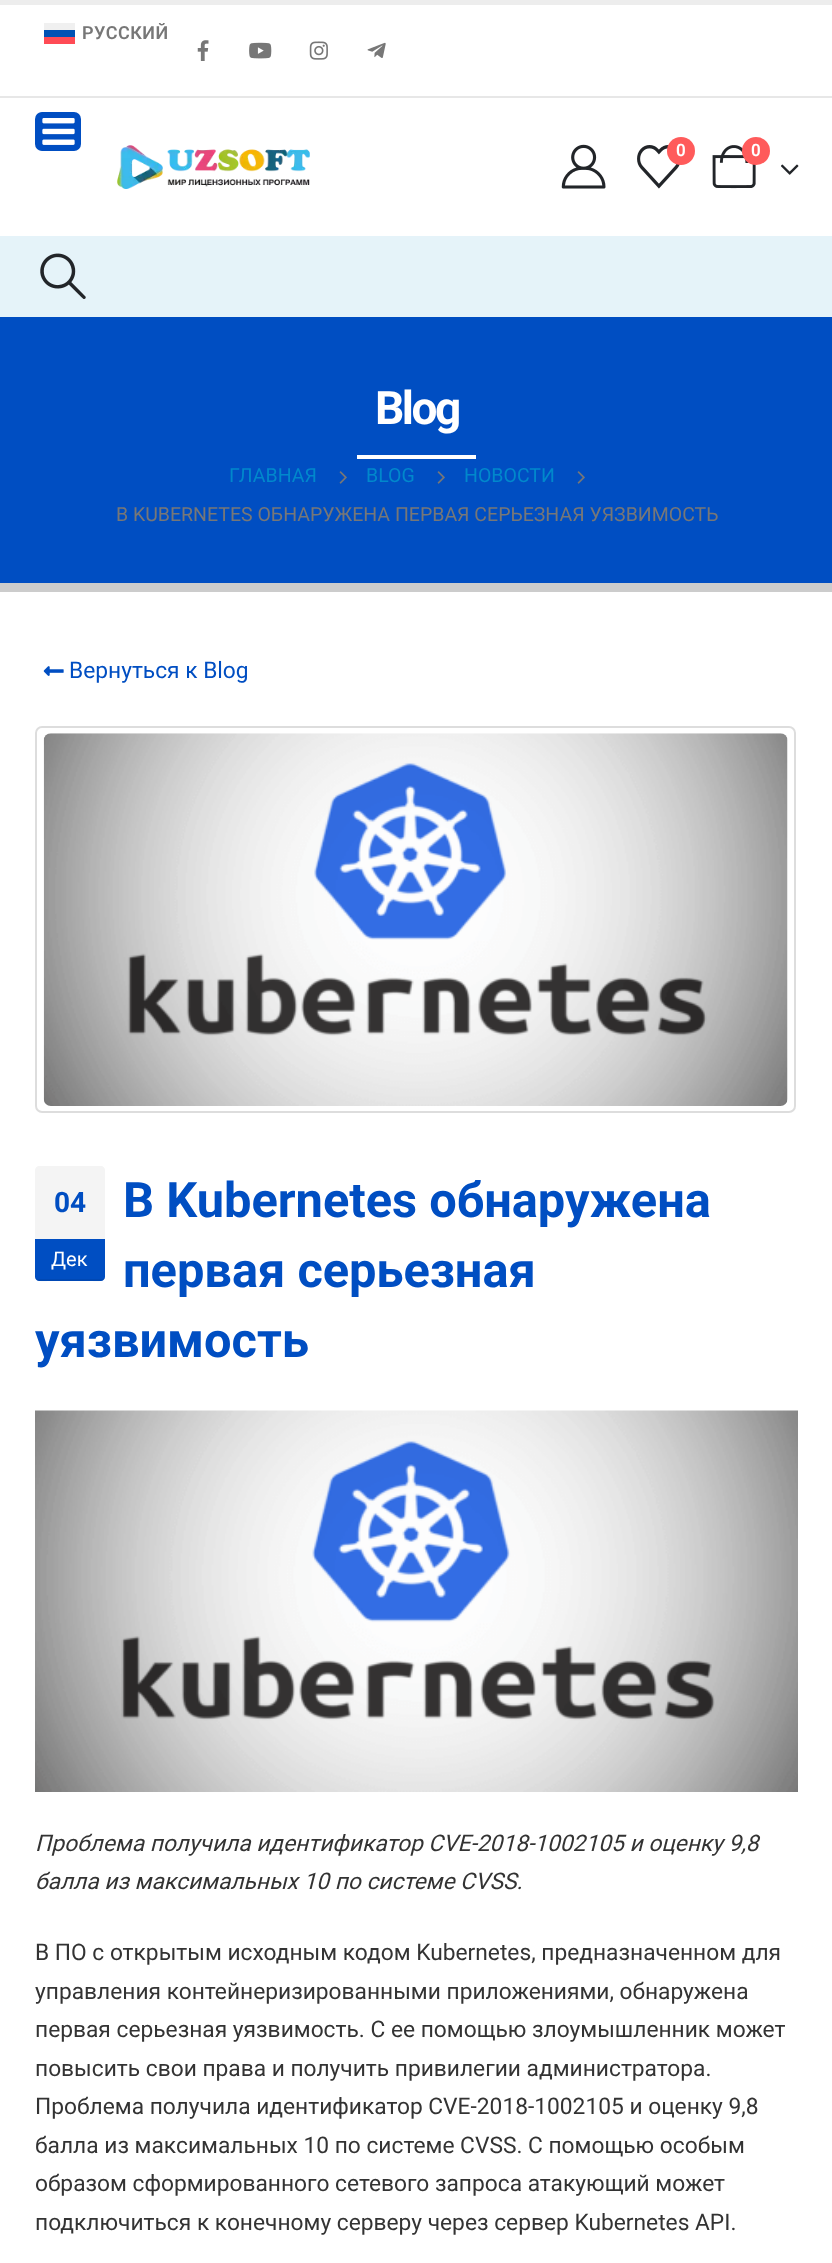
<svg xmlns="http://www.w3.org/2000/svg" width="832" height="2263">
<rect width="100%" height="100%" fill="#fff"/>
<rect width="832" height="5" fill="#ededed"/>
<rect y="96" width="832" height="2" fill="#e7e7e7"/>
<rect x="44" y="23" width="31" height="7" fill="#f0f0f0"/>
<text x="82" y="39" style="font-family:Roboto;font-size:18px;font-weight:600;letter-spacing:0.5px;fill:#777">РУССКИЙ</text>
<rect x="44" y="30" width="31" height="7" fill="#0052b4"/>
<rect x="44" y="37" width="31" height="7" fill="#ff4b55"/>
<image x="197" y="40" width="12" height="21" href="media/1.png"/>
<image x="249" y="42" width="23" height="17" href="media/2.png"/>
<image x="309" y="41" width="19" height="19" href="media/3.png"/>
<image x="367" y="42" width="19" height="16" href="media/4.png"/>
<rect x="35" y="112" width="46" height="39" rx="7" fill="#004ec2"/>
<image x="42" y="118" width="33" height="27" href="media/5.png"/>
<image x="117" y="145" width="193" height="44" href="media/6.png"/>
<image x="561" y="144" width="45" height="45" href="media/7.png"/>
<image x="637" y="145" width="43" height="44" href="media/8.png"/>
<circle cx="681" cy="151" r="14" fill="#ff5b5b"/>
<text x="676" y="156" style="font-family:Roboto;font-size:17px;font-weight:600;fill:#fff">0</text>
<image x="712" y="145" width="44" height="44" href="media/9.png"/>
<circle cx="756" cy="151" r="14" fill="#ff5b5b"/>
<text x="751" y="156" style="font-family:Roboto;font-size:17px;font-weight:600;fill:#fff">0</text>
<image x="781" y="164" width="18" height="11" href="media/10.png"/>
<rect y="236" width="832" height="81" fill="#e5f3f9"/>
<image x="40" y="253" width="46" height="46" href="media/11.png"/>
<rect y="317" width="832" height="266" fill="#004ec2"/>
<rect y="583" width="832" height="9" fill="#ccc"/>
<rect x="357" y="455" width="119" height="4" fill="#fff"/>
<text x="375" y="424" style="font-family:Roboto;font-size:46px;font-weight:bold;letter-spacing:-2.5px;fill:#fff">Blog</text>
<text x="229" y="482" style="font-family:Roboto;font-size:19.5px;fill:#08c">ГЛАВНАЯ</text>
<image x="339" y="471" width="8" height="13" href="media/12.png"/>
<text x="366" y="482" style="font-family:Roboto;font-size:19.5px;fill:#08c">BLOG</text>
<image x="437" y="471" width="8" height="13" href="media/12.png"/>
<text x="464" y="482" style="font-family:Roboto;font-size:19.5px;fill:#08c">НОВОСТИ</text>
<image x="577" y="471" width="8" height="13" href="media/12.png"/>
<text x="116" y="521" style="font-family:Roboto;font-size:19.5px;fill:#777">В KUBERNETES ОБНАРУЖЕНА ПЕРВАЯ СЕРЬЕЗНАЯ УЯЗВИМОСТЬ</text>
<image x="43" y="666" width="21" height="10" href="media/13.png"/>
<text x="69" y="678" style="font-family:Roboto;font-size:22.75px;fill:#004ec2">Вернуться к Blog</text>
<rect x="36" y="727" width="759" height="385" rx="6" fill="none" stroke="#ddd" stroke-width="2"/>
<image x="43" y="733" width="745" height="373" href="media/14.png"/>
<text x="123" y="1217" style="font-family:Roboto;font-size:48.75px;font-weight:bold;fill:#004ec2">В Kubernetes обнаружена</text>
<text x="123" y="1287" style="font-family:Roboto;font-size:48.75px;font-weight:bold;fill:#004ec2">первая серьезная</text>
<text x="35" y="1357" style="font-family:Roboto;font-size:48.75px;font-weight:bold;fill:#004ec2">уязвимость</text>
<image x="35" y="1410" width="763" height="382" href="media/15.png"/>
<text x="35" y="1851" style="font-family:Roboto;font-size:22.75px;font-style:italic;fill:#333">Проблема получила идентификатор CVE-2018-1002105 и оценку 9,8</text>
<text x="35" y="1889" style="font-family:Roboto;font-size:22.75px;font-style:italic;fill:#333">балла из максимальных 10 по системе CVSS.</text>
<text x="35" y="1960" style="font-family:Roboto;font-size:22.75px;fill:#333">В ПО с открытым исходным кодом Kubernetes, предназначенном для</text>
<text x="35" y="1999" style="font-family:Roboto;font-size:22.75px;fill:#333">управления контейнеризированными приложениями, обнаружена</text>
<text x="35" y="2037" style="font-family:Roboto;font-size:22.75px;fill:#333">первая серьезная уязвимость. С ее помощью злоумышленник может</text>
<text x="35" y="2076" style="font-family:Roboto;font-size:22.75px;fill:#333">повысить свои права и получить привилегии администратора.</text>
<text x="35" y="2114" style="font-family:Roboto;font-size:22.75px;fill:#333">Проблема получила идентификатор CVE-2018-1002105 и оценку 9,8</text>
<text x="35" y="2153" style="font-family:Roboto;font-size:22.75px;fill:#333">балла из максимальных 10 по системе CVSS. С помощью особым</text>
<text x="35" y="2191" style="font-family:Roboto;font-size:22.75px;fill:#333">образом сформированного сетевого запроса атакующий может</text>
<text x="35" y="2230" style="font-family:Roboto;font-size:22.75px;fill:#333">подключиться к конечному серверу через сервер Kubernetes API.</text>
<path d="M39 1166h62c2 0 4 2 4 4v69h-70v-69c0-2 2-4 4-4z" fill="#f4f4f4"/>
<text x="54" y="1212" style="font-family:Roboto;font-size:28px;font-weight:bold;fill:#004ec2">04</text>
<path d="M35 1239h70v38c0 2-2 4-4 4h-62c-2 0-4-2-4-4z" fill="#004ec2"/>
<path d="M35 1276c0 7 9 5 14 5h42c5 0 14 2 14-5c0 2-2 3-3 3h-64c-1 0-3-1-3-3z" fill="#00000012"/>
<text x="51" y="1266" style="font-family:Roboto;font-size:20px;fill:#fff">Дек</text>
</svg>
